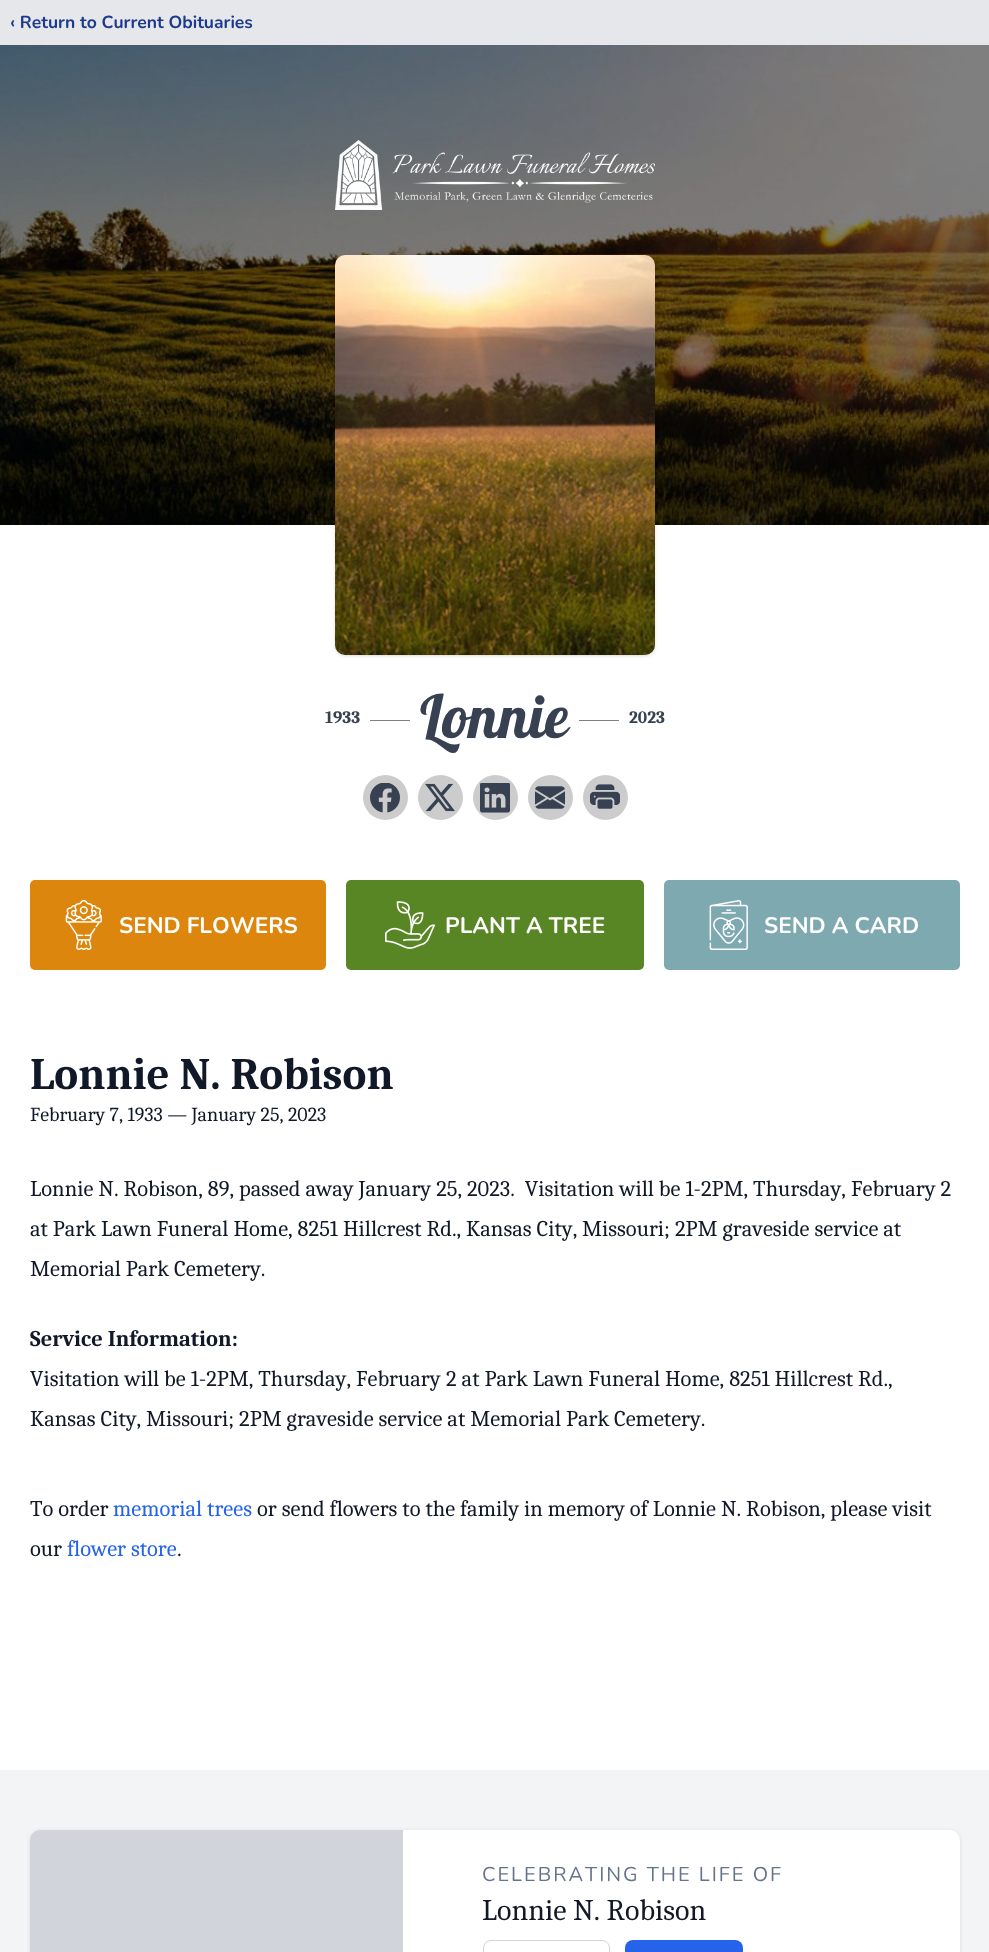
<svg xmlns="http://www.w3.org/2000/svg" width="989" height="1952">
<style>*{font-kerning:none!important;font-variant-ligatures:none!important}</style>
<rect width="100%" height="100%" fill="#fff"/>
<rect width="989" height="45" fill="#e5e7eb"/>
<text x="10" y="28" style="font-family:Nunito;font-size:17.5px;font-weight:bold;fill:#1e3a8a">‹ Return to Current Obituaries</text>
<image x="0" y="45" width="989" height="480" href="media/1.png"/>
<image x="335" y="140" width="320" height="70" href="media/2.png"/>
<rect x="336" y="258" width="318" height="397" rx="9" fill="#0000001a" filter="blur(1px)"/>
<rect x="335" y="256" width="320" height="400" rx="10" fill="#0000001a" filter="blur(2px)"/>
<image x="335" y="255" width="320" height="400" href="media/3.png"/>
<text x="325" y="723" style="font-family:Caladea;font-size:17.5px;font-weight:bold;fill:#374151">1933</text>
<rect x="370" y="720" width="40" height="1" fill="#808080"/>
<text x="420" y="738" style="font-family:Lobster;font-size:60px;fill:#374151">Lonnie</text>
<rect x="579" y="720" width="40" height="1" fill="#808080"/>
<text x="629" y="723" style="font-family:Caladea;font-size:17.5px;font-weight:bold;fill:#374151">2023</text>
<circle cx="385.5" cy="797.5" r="22.5" fill="#ccc"/>
<image x="370" y="783" width="30" height="30" href="media/4.png"/>
<circle cx="440.5" cy="797.5" r="22.5" fill="#ccc"/>
<image x="425" y="783" width="30" height="29" href="media/5.png"/>
<circle cx="495.5" cy="797.5" r="22.5" fill="#ccc"/>
<image x="480" y="783" width="30" height="30" href="media/6.png"/>
<circle cx="550.5" cy="797.5" r="22.5" fill="#ccc"/>
<image x="535" y="786" width="30" height="23" href="media/7.png"/>
<circle cx="605.5" cy="797.5" r="22.5" fill="#ccc"/>
<image x="590" y="784" width="30" height="25" href="media/8.png"/>
<rect x="30" y="880" width="296" height="90" rx="5" fill="#dc860d"/>
<image x="65" y="900" width="37" height="50" href="media/9.png"/>
<text x="119" y="933" style="font-family:Nunito;font-size:22.5px;font-weight:bold;fill:#fff">SEND FLOWERS</text>
<rect x="346" y="880" width="298" height="90" rx="5" fill="#588624"/>
<image x="385" y="901" width="50" height="48" href="media/10.png"/>
<text x="445" y="933" style="font-family:Nunito;font-size:22.5px;font-weight:bold;fill:#fff">PLANT A TREE</text>
<rect x="664" y="880" width="296" height="90" rx="5" fill="#7ea9b0"/>
<image x="709" y="900" width="39" height="50" href="media/11.png"/>
<text x="764" y="933" style="font-family:Nunito;font-size:22.5px;font-weight:bold;fill:#fff">SEND A CARD</text>
<text x="30" y="1089" style="font-family:Caladea;font-size:45px;font-weight:bold;fill:#111827">Lonnie N. Robison</text>
<text x="30" y="1121" style="font-family:Caladea;font-size:20px;fill:#111827">February 7, 1933 — January 25, 2023</text>
<text x="30" y="1196" style="font-family:Caladea;font-size:22.5px;fill:#111827">Lonnie N. Robison, 89, passed away January 25,</text>
<text x="467" y="1196" style="font-family:Caladea;font-size:22.5px;fill:#111827" xml:space="preserve">2023.  Visitation will be 1-2PM, Thursday,</text>
<text x="851" y="1196" style="font-family:Caladea;font-size:22.5px;fill:#111827">February 2</text>
<text x="30" y="1236" style="font-family:Caladea;font-size:22.5px;fill:#111827">at Park Lawn Funeral Home, 8251 Hillcrest Rd., Kansas City,</text>
<text x="582" y="1236" style="font-family:Caladea;font-size:22.5px;fill:#111827">Missouri; 2PM graveside service at</text>
<text x="30" y="1276" style="font-family:Caladea;font-size:22.5px;fill:#111827">Memorial Park Cemetery.</text>
<text x="30" y="1346" style="font-family:Caladea;font-size:22.5px;font-weight:bold;fill:#111827">Service Information:</text>
<text x="30" y="1386" style="font-family:Caladea;font-size:22.5px;fill:#111827">Visitation will be 1-2PM, Thursday, February</text>
<text x="446" y="1386" style="font-family:Caladea;font-size:22.5px;fill:#111827">2 at Park Lawn Funeral Home, 8251 Hillcrest Rd.,</text>
<text x="30" y="1426" style="font-family:Caladea;font-size:22.5px;fill:#111827">Kansas City, Missouri; 2PM graveside service at Memorial Park</text>
<text x="614" y="1426" style="font-family:Caladea;font-size:22.5px;fill:#111827">Cemetery.</text>
<text x="30" y="1516" style="font-family:Caladea;font-size:22.5px;fill:#111827">To order</text>
<text x="113" y="1516" style="font-family:Caladea;font-size:22.5px;fill:#2563eb">memorial trees</text>
<text x="257" y="1516" style="font-family:Caladea;font-size:22.5px;fill:#111827">or send flowers to the family in memory of Lonnie N. Robison, please visit</text>
<text x="30" y="1556" style="font-family:Caladea;font-size:22.5px;fill:#111827">our</text>
<text x="67" y="1556" style="font-family:Caladea;font-size:22.5px;fill:#2563eb">flower store</text>
<text x="177" y="1556" style="font-family:Caladea;font-size:22.5px;fill:#111827">.</text>
<rect y="1770" width="989" height="182" fill="#f3f4f6"/>
<rect x="30" y="1831" width="930" height="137" rx="10" fill="#0000001a" filter="blur(2px)"/>
<rect x="30" y="1830" width="930" height="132" rx="10" fill="#fff"/>
<path d="M40 1830h363v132h-363c-5.5 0-10-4.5-10-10v-112c0-5.5 4.5-10 10-10z" fill="#d1d5db"/>
<text x="482" y="1881" style="font-family:Nunito;font-size:20px;letter-spacing:2px;fill:#64748b">CELEBRATING THE LIFE OF</text>
<text x="482" y="1920" style="font-family:Caladea;font-size:30px;fill:#111827">Lonnie N. Robison</text>
<rect x="483.5" y="1940.5" width="126" height="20" rx="7.5" fill="none" stroke="#d1d5db"/>
<rect x="625" y="1940" width="118" height="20" rx="8" fill="#2563eb"/>
</svg>
